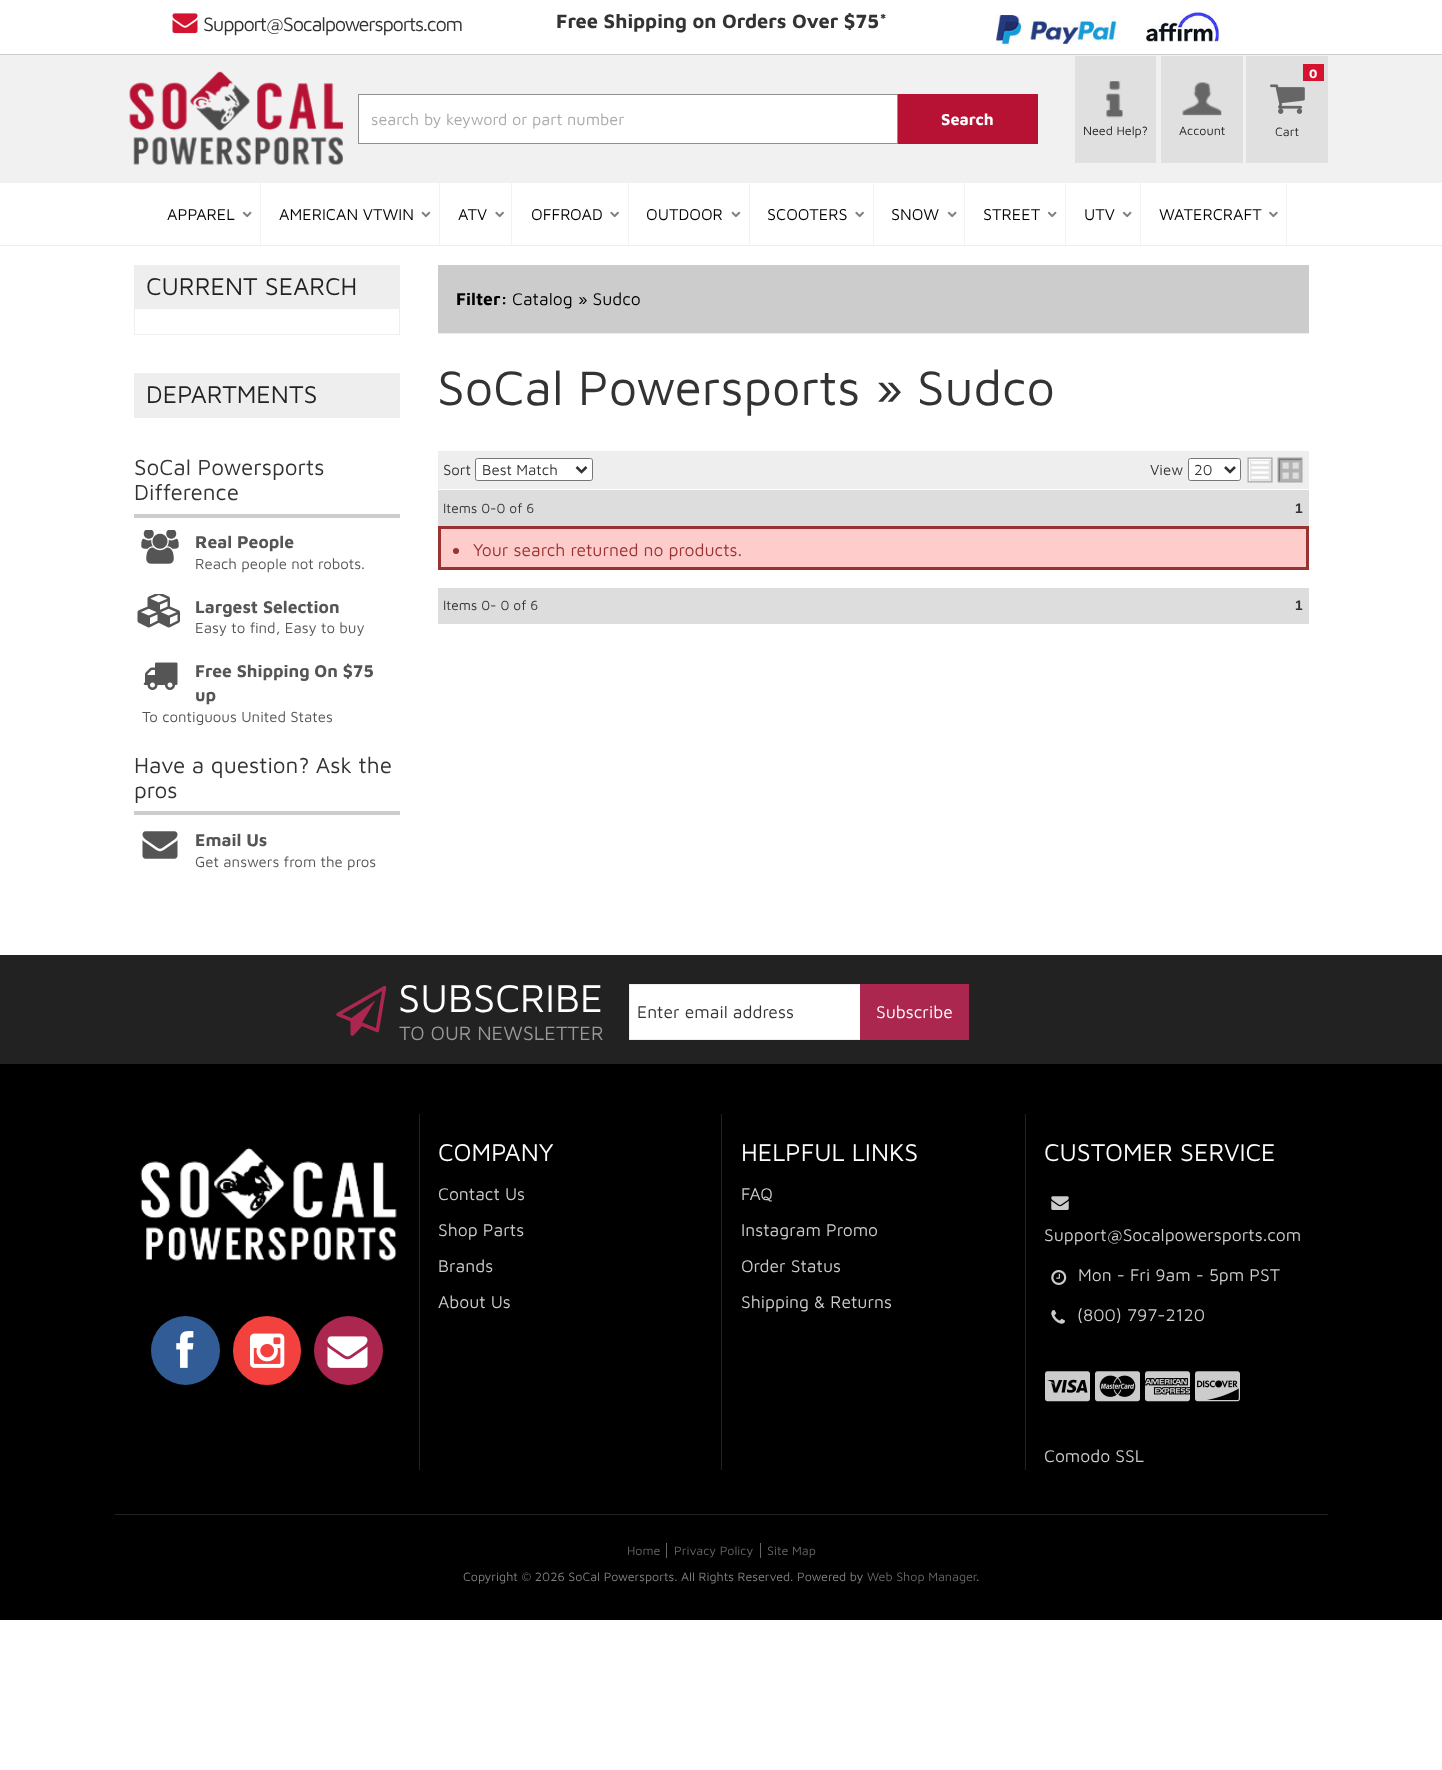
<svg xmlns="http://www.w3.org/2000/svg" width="1442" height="1770">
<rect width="100%" height="100%" fill="#fff"/>
<rect y="54" width="1442" height="1" fill="#ccc"/>
<image x="172" y="13" width="26" height="21" href="media/1.png"/>
<text x="203" y="31" style="font-family:Maven Pro;font-size:20px;letter-spacing:-1.25px;fill:#333">Support@Socalpowersports.com</text>
<text x="556" y="28" style="font-family:Maven Pro;font-size:20px;font-weight:bold;fill:#333">Free Shipping on Orders Over $75*</text>
<image x="996" y="15" width="121" height="32" href="media/2.png"/>
<image x="1146" y="12" width="73" height="30" href="media/3.png"/>
<rect y="55" width="1442" height="128" fill="#f1f1f1"/>
<image x="129" y="71" width="214" height="94" href="media/4.png"/>
<rect x="358.5" y="94.5" width="539" height="49" fill="#fff" stroke="#909090"/>
<text x="371" y="125" style="font-family:Maven Pro;font-size:16.25px;fill:#aaa">search by keyword or part number</text>
<rect x="898" y="94" width="140" height="50" fill="#b71234"/>
<text x="941" y="125" style="font-family:Maven Pro;font-size:16.25px;font-weight:bold;fill:#fff">Search</text>
<rect x="1246" y="56" width="82" height="107" fill="#e0e0e0"/>
<rect x="1303" y="64" width="21" height="17" fill="#d51330"/>
<text x="1309" y="78" style="font-family:Maven Pro;font-size:12.5px;font-weight:bold;fill:#fff">0</text>
<image x="1270" y="84" width="35" height="30" href="media/5.png"/>
<text x="1275" y="136" style="font-family:Maven Pro;font-size:12.5px;fill:#222">Cart</text>
<rect x="1075" y="56" width="81" height="107" fill="#e0e0e0"/>
<image x="1106" y="81" width="17" height="37" href="media/6.png"/>
<text x="1083" y="135" style="font-family:Maven Pro;font-size:12.5px;fill:#222">Need Help?</text>
<rect x="1161" y="56" width="82" height="107" fill="#e0e0e0"/>
<image x="1182" y="82" width="40" height="34" href="media/7.png"/>
<text x="1179" y="135" style="font-family:Maven Pro;font-size:12.5px;fill:#222">Account</text>
<rect y="245" width="1442" height="1" fill="#eee"/>
<rect x="260" y="183" width="1" height="62" fill="#f2f2f2"/>
<text x="167" y="220" style="font-family:Maven Pro;font-size:16.25px;fill:#000">APPAREL</text>
<image x="242" y="211" width="10" height="7" href="media/8.png"/>
<rect x="439" y="183" width="1" height="62" fill="#f2f2f2"/>
<text x="279" y="220" style="font-family:Maven Pro;font-size:16.25px;fill:#000">AMERICAN VTWIN</text>
<image x="421" y="211" width="10" height="7" href="media/9.png"/>
<rect x="511" y="183" width="1" height="62" fill="#f2f2f2"/>
<text x="458" y="220" style="font-family:Maven Pro;font-size:16.25px;fill:#000">ATV</text>
<image x="495" y="211" width="9" height="7" href="media/10.png"/>
<rect x="628" y="183" width="1" height="62" fill="#f2f2f2"/>
<text x="531" y="220" style="font-family:Maven Pro;font-size:16.25px;fill:#000">OFFROAD</text>
<image x="610" y="211" width="9" height="7" href="media/10.png"/>
<rect x="749" y="183" width="1" height="62" fill="#f2f2f2"/>
<text x="646" y="220" style="font-family:Maven Pro;font-size:16.25px;fill:#000">OUTDOOR</text>
<image x="731" y="211" width="10" height="7" href="media/9.png"/>
<rect x="873" y="183" width="1" height="62" fill="#f2f2f2"/>
<text x="767" y="220" style="font-family:Maven Pro;font-size:16.25px;fill:#000">SCOOTERS</text>
<image x="855" y="211" width="9" height="7" href="media/10.png"/>
<rect x="964" y="183" width="1" height="62" fill="#f2f2f2"/>
<text x="891" y="220" style="font-family:Maven Pro;font-size:16.25px;fill:#000">SNOW</text>
<image x="947" y="211" width="10" height="7" href="media/8.png"/>
<rect x="1065" y="183" width="1" height="62" fill="#f2f2f2"/>
<text x="983" y="220" style="font-family:Maven Pro;font-size:16.25px;fill:#000">STREET</text>
<image x="1047" y="211" width="10" height="7" href="media/8.png"/>
<rect x="1140" y="183" width="1" height="62" fill="#f2f2f2"/>
<text x="1084" y="220" style="font-family:Maven Pro;font-size:16.25px;fill:#000">UTV</text>
<image x="1122" y="211" width="10" height="7" href="media/8.png"/>
<rect x="1286" y="183" width="1" height="62" fill="#f2f2f2"/>
<text x="1159" y="220" style="font-family:Maven Pro;font-size:16.25px;fill:#000">WATERCRAFT</text>
<image x="1269" y="211" width="9" height="7" href="media/11.png"/>
<rect x="134" y="265" width="266" height="43" fill="#eee"/>
<text x="146" y="295" style="font-family:Maven Pro;font-size:25px;fill:#222">CURRENT SEARCH</text>
<rect x="134.5" y="308.5" width="265" height="26" fill="none" stroke="#eee"/>
<rect x="134" y="373" width="266" height="45" fill="#eee"/>
<text x="146" y="403" style="font-family:Maven Pro;font-size:25px;fill:#222">DEPARTMENTS</text>
<rect x="134" y="514" width="266" height="4" fill="#ccc"/>
<text x="134" y="475" style="font-family:Maven Pro;font-size:22.5px;fill:#333">SoCal Powersports</text>
<text x="134" y="500" style="font-family:Maven Pro;font-size:22.5px;fill:#333">Difference</text>
<image x="141" y="530" width="38" height="34" href="media/12.png"/>
<text x="195" y="548" style="font-family:Maven Pro;font-size:17.5px;font-weight:bold;fill:#555">Real People</text>
<text x="195" y="569" style="font-family:Maven Pro;font-size:15px;fill:#555">Reach people not robots.</text>
<image x="137" y="594" width="43" height="34" href="media/13.png"/>
<text x="195" y="613" style="font-family:Maven Pro;font-size:17.5px;font-weight:bold;fill:#555">Largest Selection</text>
<text x="195" y="633" style="font-family:Maven Pro;font-size:15px;fill:#555">Easy to find, Easy to buy</text>
<image x="143" y="662" width="35" height="28" href="media/14.png"/>
<text x="195" y="677" style="font-family:Maven Pro;font-size:17.5px;font-weight:bold;fill:#555">Free Shipping On $75</text>
<text x="195" y="701" style="font-family:Maven Pro;font-size:17.5px;font-weight:bold;fill:#555">up</text>
<text x="142" y="722" style="font-family:Maven Pro;font-size:15px;fill:#555">To contiguous United States</text>
<rect x="134" y="811" width="266" height="4" fill="#ccc"/>
<text x="134" y="773" style="font-family:Maven Pro;font-size:22.5px;fill:#333">Have a question? Ask the</text>
<text x="134" y="798" style="font-family:Maven Pro;font-size:22.5px;fill:#333">pros</text>
<image x="142" y="831" width="36" height="28" href="media/15.png"/>
<text x="195" y="846" style="font-family:Maven Pro;font-size:17.5px;font-weight:bold;fill:#555">Email Us</text>
<text x="195" y="867" style="font-family:Maven Pro;font-size:15px;fill:#555">Get answers from the pros</text>
<rect x="438" y="265" width="871" height="68" fill="#ccc"/>
<rect x="438" y="333" width="871" height="1" fill="#eee"/>
<text x="456" y="305" style="font-family:Maven Pro;font-size:17.5px;font-weight:bold;fill:#000">Filter:</text>
<text x="512" y="305" style="font-family:Maven Pro;font-size:17.5px;fill:#000">Catalog » Sudco</text>
<text x="437" y="405" style="font-family:Maven Pro;font-size:50px;fill:#333">SoCal Powersports » Sudco</text>
<rect x="438" y="451" width="871" height="38" fill="#eee"/>
<text x="443" y="475" style="font-family:Maven Pro;font-size:15px;fill:#333">Sort</text>
<rect x="475.5" y="458.5" width="117" height="22" rx="2" fill="#fff" stroke="#767676"/>
<path d="M576.5 467l5 5l5-5" fill="none" stroke="#333" stroke-width="2.5"/>
<text x="482" y="475" style="font-family:Maven Pro;font-size:15px;fill:#333">Best Match</text>
<text x="1150" y="475" style="font-family:Maven Pro;font-size:15px;fill:#333">View</text>
<rect x="1188.5" y="458.5" width="52" height="22" rx="2" fill="#fff" stroke="#767676"/>
<path d="M1225 467l5 5l5-5" fill="none" stroke="#333" stroke-width="2.5"/>
<text x="1194" y="475" style="font-family:Maven Pro;font-size:15px;fill:#333">20</text>
<image x="1247" y="457" width="56" height="26" href="media/16.png"/>
<rect x="438" y="490" width="871" height="36" fill="#ddd"/>
<text x="443" y="513" style="font-family:Maven Pro;font-size:13.75px;fill:#333">Items 0-0 of 6</text>
<text x="1295" y="513" style="font-family:Liberation Sans;font-size:13.75px;font-weight:bold;fill:#333">1</text>
<rect x="439.5" y="527.5" width="868" height="41" fill="#fcc" stroke="#933" stroke-width="3"/>
<circle cx="456" cy="551" r="3" fill="#933"/>
<text x="473" y="556" style="font-family:Maven Pro;font-size:17.5px;fill:#933">Your search returned no products.</text>
<rect x="438" y="588" width="871" height="36" fill="#ddd"/>
<text x="443" y="610" style="font-family:Maven Pro;font-size:13.75px;fill:#333">Items 0- 0 of 6</text>
<text x="1295" y="610" style="font-family:Liberation Sans;font-size:13.75px;font-weight:bold;fill:#333">1</text>
<rect y="1064" width="1442" height="556" fill="#000"/>
<rect y="955" width="1442" height="109" fill="#222"/>
<image x="336" y="985" width="51" height="51" href="media/17.png"/>
<text x="398" y="1012" style="font-family:Maven Pro;font-size:40px;fill:#fff">SUBSCRIBE</text>
<text x="399" y="1040" style="font-family:Maven Pro;font-size:20px;fill:#999">TO OUR NEWSLETTER</text>
<rect x="630" y="985" width="230" height="54" fill="#fff"/>
<rect x="629.5" y="984.5" width="339" height="55" fill="none" stroke="#eee"/>
<text x="637" y="1018" style="font-family:Maven Pro;font-size:17.5px;fill:#333">Enter email address</text>
<rect x="860" y="984" width="109" height="56" fill="#ab274f"/>
<text x="876" y="1018" style="font-family:Maven Pro;font-size:17.5px;fill:#fff">Subscribe</text>
<image x="140" y="1147" width="257" height="114" href="media/18.png"/>
<circle cx="185.5" cy="1350.5" r="34.5" fill="#315c95"/>
<image x="176" y="1331" width="18" height="37" href="media/19.png"/>
<rect x="233" y="1316" width="68" height="69" rx="34" fill="#f3413e"/>
<image x="250" y="1333" width="35" height="35" href="media/20.png"/>
<circle cx="348.5" cy="1350.5" r="34.5" fill="#ab274f"/>
<image x="327" y="1336" width="41" height="32" href="media/21.png"/>
<rect x="419" y="1114" width="1" height="356" fill="#222"/>
<text x="438" y="1161" style="font-family:Maven Pro;font-size:25px;fill:#fff">COMPANY</text>
<text x="438" y="1200" style="font-family:Maven Pro;font-size:17.5px;fill:#ccc">Contact Us</text>
<text x="438" y="1236" style="font-family:Maven Pro;font-size:17.5px;fill:#ccc">Shop Parts</text>
<text x="438" y="1272" style="font-family:Maven Pro;font-size:17.5px;fill:#ccc">Brands</text>
<text x="438" y="1308" style="font-family:Maven Pro;font-size:17.5px;fill:#ccc">About Us</text>
<rect x="721" y="1114" width="1" height="356" fill="#222"/>
<text x="741" y="1161" style="font-family:Maven Pro;font-size:25px;fill:#fff">HELPFUL LINKS</text>
<text x="741" y="1200" style="font-family:Maven Pro;font-size:17.5px;fill:#ccc">FAQ</text>
<text x="741" y="1236" style="font-family:Maven Pro;font-size:17.5px;fill:#ccc">Instagram Promo</text>
<text x="741" y="1272" style="font-family:Maven Pro;font-size:17.5px;fill:#ccc">Order Status</text>
<text x="741" y="1308" style="font-family:Maven Pro;font-size:17.5px;fill:#ccc">Shipping &amp; Returns</text>
<rect x="1025" y="1114" width="1" height="356" fill="#222"/>
<text x="1044" y="1161" style="font-family:Maven Pro;font-size:25px;fill:#fff">CUSTOMER SERVICE</text>
<image x="1051" y="1196" width="18" height="14" href="media/22.png"/>
<text x="1044" y="1241" style="font-family:Maven Pro;font-size:17.5px;fill:#ccc">Support@Socalpowersports.com</text>
<image x="1051" y="1270" width="16" height="15" href="media/23.png"/>
<text x="1078" y="1281" style="font-family:Maven Pro;font-size:17.5px;fill:#ccc">Mon - Fri 9am - 5pm PST</text>
<image x="1051" y="1310" width="14" height="14" href="media/24.png"/>
<text x="1077" y="1321" style="font-family:Maven Pro;font-size:17.5px;fill:#ccc">(800) 797-2120</text>
<image x="1045" y="1371" width="45" height="31" href="media/25.png"/>
<image x="1095" y="1371" width="45" height="31" href="media/26.png"/>
<image x="1145" y="1371" width="45" height="31" href="media/27.png"/>
<image x="1195" y="1371" width="45" height="31" href="media/28.png"/>
<text x="1044" y="1462" style="font-family:Maven Pro;font-size:17.5px;fill:#ccc">Comodo SSL</text>
<rect x="115" y="1514" width="1213" height="1" fill="#222"/>
<text x="627" y="1555" style="font-family:Maven Pro;font-size:12.5px;fill:#666">Home</text>
<rect x="666" y="1543" width="1" height="15" fill="#666"/>
<text x="674" y="1555" style="font-family:Maven Pro;font-size:12.5px;fill:#666">Privacy Policy</text>
<rect x="760" y="1543" width="1" height="15" fill="#666"/>
<text x="767" y="1555" style="font-family:Maven Pro;font-size:12.5px;fill:#666">Site Map</text>
<text x="463" y="1581" style="font-family:Maven Pro;font-size:12.5px;fill:#808080">Copyright © 2026 SoCal Powersports. All Rights Reserved. Powered by</text>
<text x="867" y="1581" style="font-family:Maven Pro;font-size:12.5px;fill:#666">Web Shop Manager</text>
<text x="976" y="1581" style="font-family:Maven Pro;font-size:12.5px;fill:#808080">.</text>
</svg>
